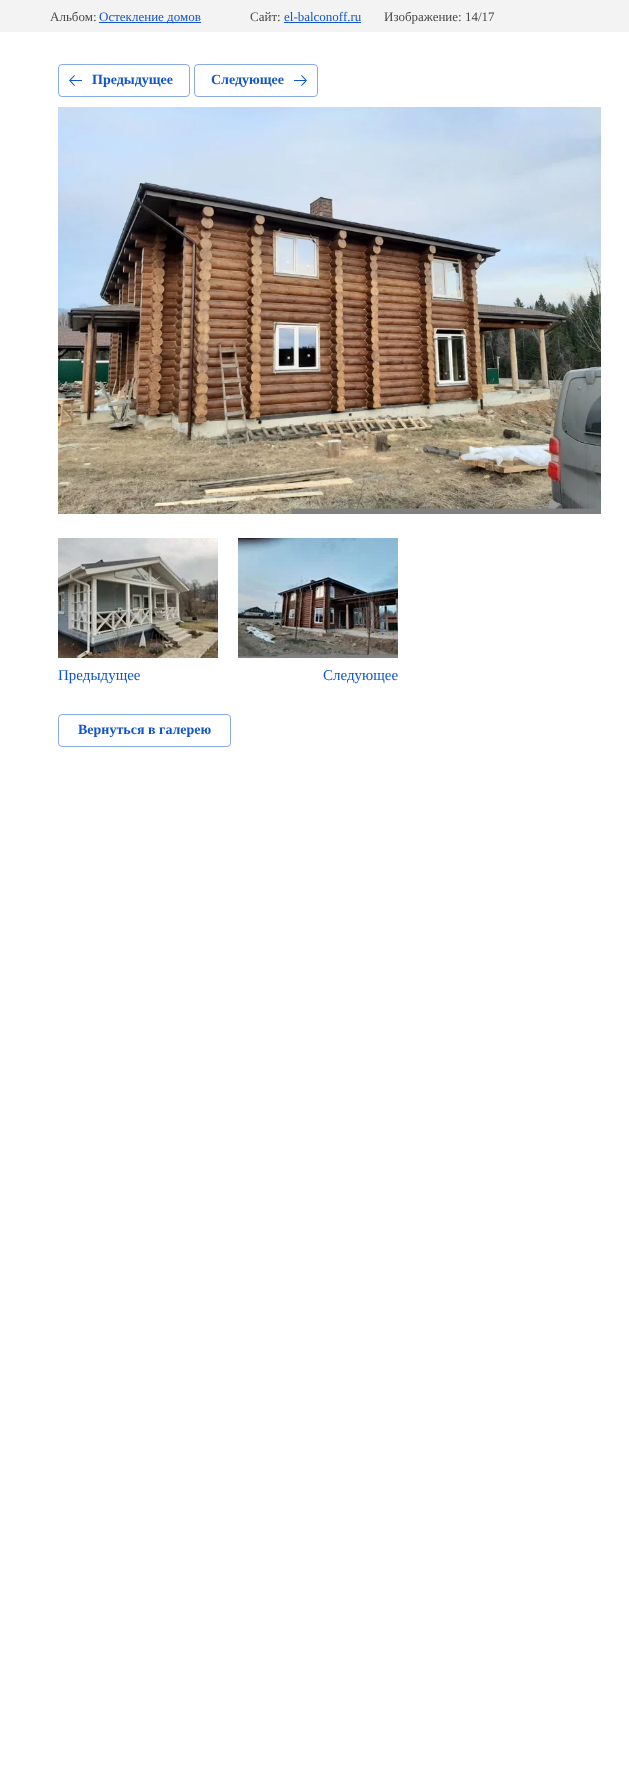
<svg xmlns="http://www.w3.org/2000/svg" width="629" height="1768">
<rect width="100%" height="100%" fill="#fff"/>
<rect width="629" height="32" fill="#f3f3f3"/>
<text x="50" y="21" style="font-family:Liberation Serif;font-size:13px;fill:#484848">Альбом:</text>
<rect x="99" y="22" width="102" height="1" fill="#15c"/>
<text x="99" y="21" style="font-family:Liberation Serif;font-size:13px;fill:#15c">Остекление домов</text>
<text x="250" y="21" style="font-family:Liberation Serif;font-size:13px;fill:#484848">Сайт:</text>
<text x="284" y="21" style="font-family:Liberation Serif;font-size:13px;fill:#15c">el-balconoff.ru</text>
<rect x="284" y="22" width="77" height="1" fill="#15c"/>
<text x="384" y="21" style="font-family:Liberation Serif;font-size:13px;fill:#484848">Изображение: 14/17</text>
<rect x="58.5" y="64.5" width="131" height="32" rx="3.5" fill="none" stroke="#88aae6"/>
<image x="69" y="75" width="13" height="11" href="media/1.png"/>
<text x="92" y="84" style="font-family:Liberation Serif;font-size:14px;font-weight:bold;fill:#15c">Предыдущее</text>
<rect x="194.5" y="64.5" width="123" height="32" rx="3.5" fill="none" stroke="#88aae6"/>
<text x="211" y="84" style="font-family:Liberation Serif;font-size:14px;font-weight:bold;fill:#15c">Следующее</text>
<image x="294" y="75" width="13" height="11" href="media/2.png"/>
<image x="58" y="107" width="543" height="407" href="media/3.png"/>
<image x="58" y="538" width="160" height="120" href="media/4.png"/>
<text x="58" y="680" style="font-family:Liberation Serif;font-size:15px;fill:#15c">Предыдущее</text>
<image x="238" y="538" width="160" height="120" href="media/5.png"/>
<text x="323" y="680" style="font-family:Liberation Serif;font-size:15px;fill:#15c">Следующее</text>
<rect x="58.5" y="714.5" width="172" height="32" rx="3.5" fill="none" stroke="#88aae6"/>
<text x="78" y="734" style="font-family:Liberation Serif;font-size:14px;font-weight:bold;fill:#15c">Вернуться в галерею</text>
</svg>
